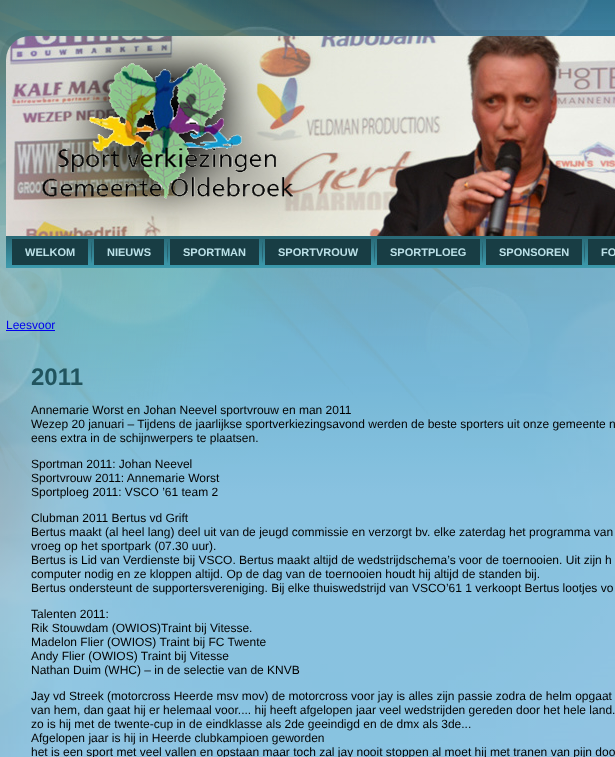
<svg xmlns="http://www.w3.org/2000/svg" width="615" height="757">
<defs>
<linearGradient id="g1" gradientUnits="userSpaceOnUse" x1="512" y1="236" x2="512" y2="268"><stop offset="0" stop-color="#296875"/><stop offset="1" stop-color="#3d9bae"/></linearGradient>
</defs>
<rect width="100%" height="100%" fill="#fff"/>
<image x="0" y="0" width="615" height="757" href="media/1.png"/>
<image x="6" y="36" width="609" height="200" href="media/2.png"/>
<rect x="6" y="236" width="609" height="32" fill="url(#g1)"/>
<rect x="12" y="239" width="76" height="26" fill="#183d44"/>
<text x="25" y="256" style="font-family:Liberation Sans;font-size:11px;font-weight:bold;fill:#bbe0e7">WELKOM</text>
<image x="91" y="242" width="1" height="21" href="media/3.png"/>
<rect x="94" y="239" width="70" height="26" fill="#183d44"/>
<text x="107" y="256" style="font-family:Liberation Sans;font-size:11px;font-weight:bold;fill:#bbe0e7">NIEUWS</text>
<image x="167" y="242" width="1" height="21" href="media/3.png"/>
<rect x="170" y="239" width="89" height="26" fill="#183d44"/>
<text x="183" y="256" style="font-family:Liberation Sans;font-size:11px;font-weight:bold;fill:#bbe0e7">SPORTMAN</text>
<image x="262" y="242" width="1" height="21" href="media/3.png"/>
<rect x="265" y="239" width="106" height="26" fill="#183d44"/>
<text x="278" y="256" style="font-family:Liberation Sans;font-size:11px;font-weight:bold;fill:#bbe0e7">SPORTVROUW</text>
<image x="374" y="242" width="1" height="21" href="media/3.png"/>
<rect x="377" y="239" width="103" height="26" fill="#183d44"/>
<text x="390" y="256" style="font-family:Liberation Sans;font-size:11px;font-weight:bold;fill:#bbe0e7">SPORTPLOEG</text>
<image x="482" y="242" width="1" height="21" href="media/3.png"/>
<rect x="486" y="239" width="96" height="26" fill="#183d44"/>
<text x="499" y="256" style="font-family:Liberation Sans;font-size:11px;font-weight:bold;fill:#bbe0e7">SPONSOREN</text>
<image x="584" y="242" width="1" height="21" href="media/3.png"/>
<rect x="588" y="239" width="27" height="26" fill="#183d44"/>
<text x="601" y="256" style="font-family:Liberation Sans;font-size:11px;font-weight:bold;fill:#bbe0e7">FO</text>
<text x="6" y="329" style="font-family:Liberation Sans;font-size:12px;fill:#00e">Leesvoor</text>
<rect x="6" y="330" width="49" height="1" fill="#00e"/>
<text x="31" y="385" style="font-family:Liberation Sans;font-size:24px;font-weight:bold;fill:#21545e">2011</text>
<text x="31" y="414" style="font-family:Liberation Sans;font-size:12px;fill:#000">Annemarie Worst en Johan Neevel sportvrouw en man 2011</text>
<text x="31" y="428" style="font-family:Liberation Sans;font-size:12px;fill:#000">Wezep 20 januari – Tijdens de jaarlijkse sportverkiezingsavond werden de beste sporters uit onze gemeente n</text>
<text x="31" y="442" style="font-family:Liberation Sans;font-size:12px;fill:#000">eens extra in de schijnwerpers te plaatsen.</text>
<text x="31" y="468" style="font-family:Liberation Sans;font-size:12px;fill:#000">Sportman 2011: Johan Neevel</text>
<text x="31" y="482" style="font-family:Liberation Sans;font-size:12px;fill:#000">Sportvrouw 2011: Annemarie Worst</text>
<text x="31" y="496" style="font-family:Liberation Sans;font-size:12px;fill:#000">Sportploeg 2011: VSCO ’61 team 2</text>
<text x="31" y="522" style="font-family:Liberation Sans;font-size:12px;fill:#000">Clubman 2011 Bertus vd Grift</text>
<text x="31" y="536" style="font-family:Liberation Sans;font-size:12px;fill:#000">Bertus maakt (al heel lang) deel uit van de jeugd commissie en verzorgt bv. elke zaterdag het programma van</text>
<text x="31" y="550" style="font-family:Liberation Sans;font-size:12px;fill:#000">vroeg op het sportpark (07.30 uur).</text>
<text x="31" y="564" style="font-family:Liberation Sans;font-size:12px;fill:#000">Bertus is Lid van Verdienste bij VSCO. Bertus maakt altijd de wedstrijdschema’s voor de toernooien. Uit zijn h</text>
<text x="31" y="578" style="font-family:Liberation Sans;font-size:12px;fill:#000">computer nodig en ze kloppen altijd. Op de dag van de toernooien houdt hij altijd de standen bij.</text>
<text x="31" y="592" style="font-family:Liberation Sans;font-size:12px;fill:#000">Bertus ondersteunt de supportersvereniging. Bij elke thuiswedstrijd van VSCO’61 1 verkoopt Bertus lootjes vo</text>
<text x="31" y="618" style="font-family:Liberation Sans;font-size:12px;fill:#000">Talenten 2011:</text>
<text x="31" y="632" style="font-family:Liberation Sans;font-size:12px;fill:#000">Rik Stouwdam (OWIOS)Traint bij Vitesse.</text>
<text x="31" y="646" style="font-family:Liberation Sans;font-size:12px;fill:#000">Madelon Flier (OWIOS) Traint bij FC Twente</text>
<text x="31" y="660" style="font-family:Liberation Sans;font-size:12px;fill:#000">Andy Flier (OWIOS) Traint bij Vitesse</text>
<text x="31" y="674" style="font-family:Liberation Sans;font-size:12px;fill:#000">Nathan Duim (WHC) – in de selectie van de KNVB</text>
<text x="31" y="700" style="font-family:Liberation Sans;font-size:12px;fill:#000">Jay vd Streek (motorcross Heerde msv mov) de motorcross voor jay is alles zijn passie zodra de helm opgaat</text>
<text x="31" y="714" style="font-family:Liberation Sans;font-size:12px;fill:#000">van hem, dan gaat hij er helemaal voor.... hij heeft afgelopen jaar veel wedstrijden gereden door het hele land.</text>
<text x="31" y="728" style="font-family:Liberation Sans;font-size:12px;fill:#000">zo is hij met de twente-cup in de eindklasse als 2de geeindigd en de dmx als 3de...</text>
<text x="31" y="742" style="font-family:Liberation Sans;font-size:12px;fill:#000">Afgelopen jaar is hij in Heerde clubkampioen geworden</text>
<text x="31" y="756" style="font-family:Liberation Sans;font-size:12px;fill:#000">het is een sport met veel vallen en opstaan maar toch zal jay nooit stoppen al moet hij met tranen van pijn doo</text>
</svg>
